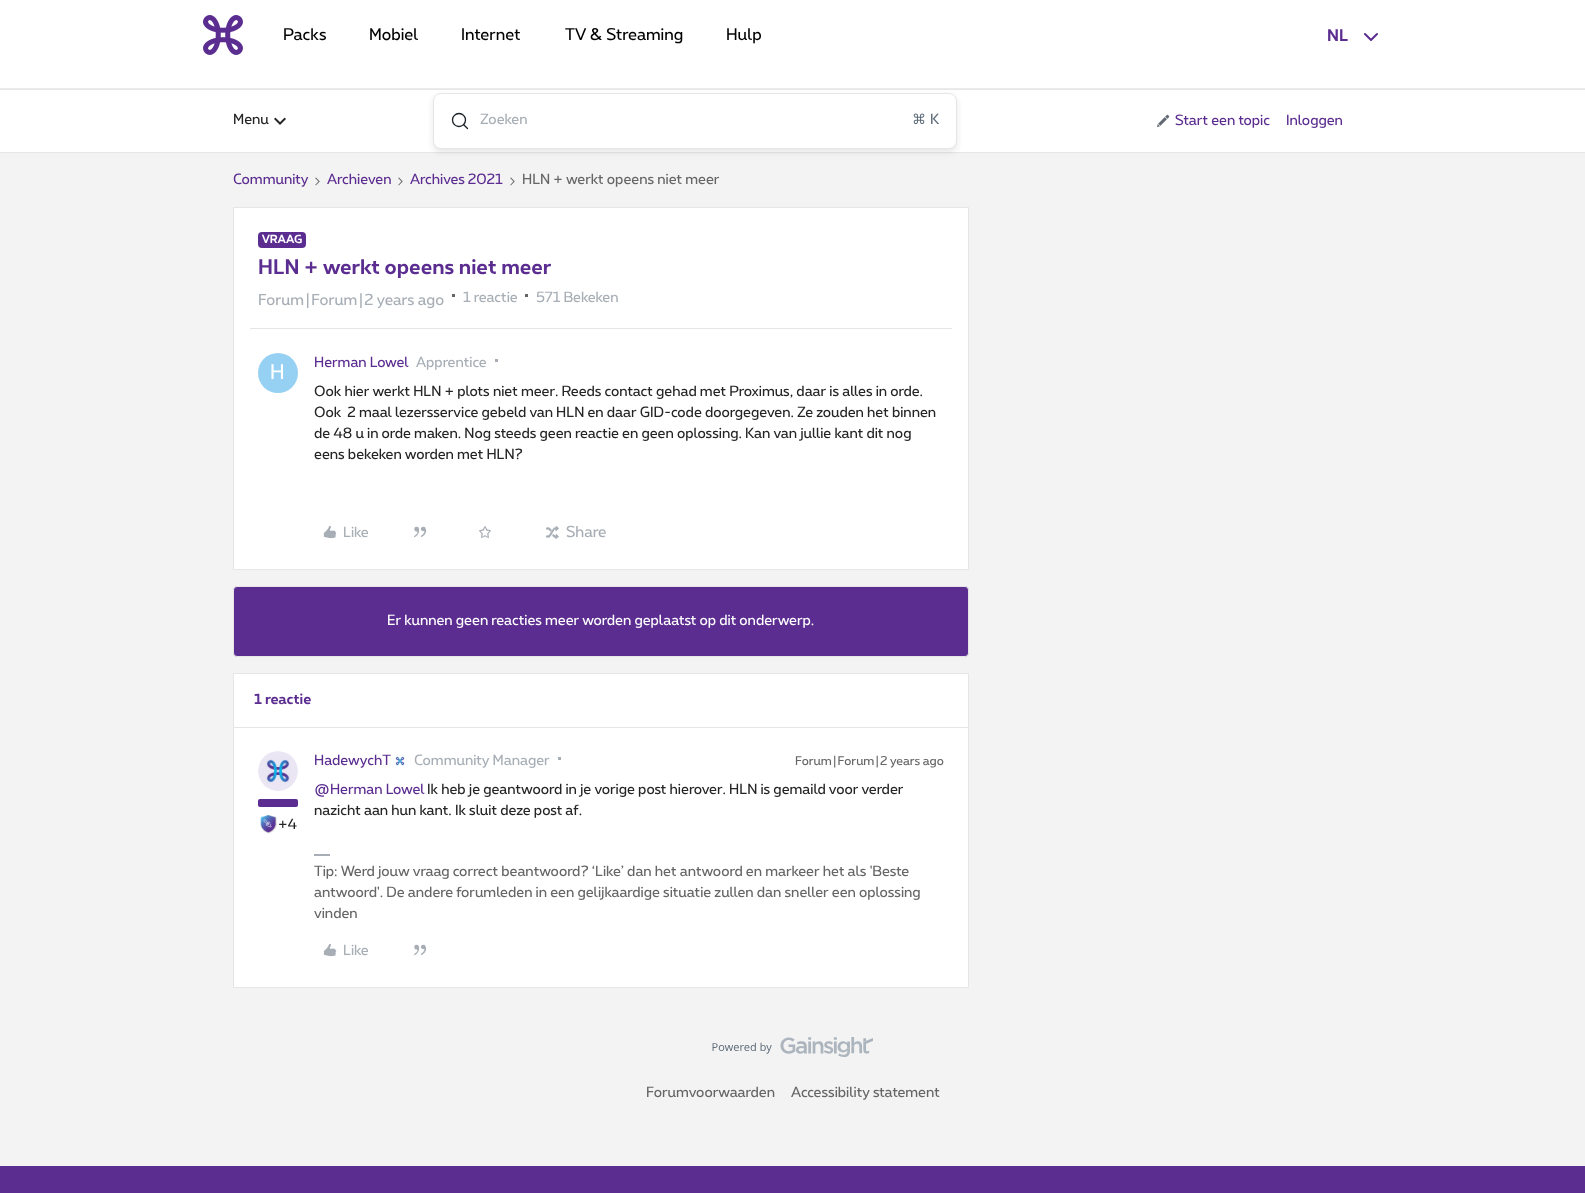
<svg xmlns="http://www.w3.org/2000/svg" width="1585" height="1193">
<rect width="100%" height="100%" fill="#f3f3f3"/>
<rect y="90" width="1585" height="62" fill="#fff"/>
<rect y="89" width="1585" height="1" fill="#e6e6e7"/>
<rect y="152" width="1585" height="1" fill="#e6e6e7"/>
<rect x="433" y="96" width="524" height="56" rx="8" fill="#0000001a" filter="blur(3px)"/>
<rect width="1585" height="88" fill="#fff"/>
<rect y="88" width="1585" height="1" fill="#ebebeb"/>
<image x="203" y="15" width="40" height="40" href="media/1.png"/>
<text x="283" y="40" style="font-family:'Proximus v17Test';font-size:16px;fill:#000">Packs</text>
<text x="369" y="40" style="font-family:'Proximus v17Test';font-size:16px;fill:#000">Mobiel</text>
<text x="461" y="40" style="font-family:'Proximus v17Test';font-size:16px;fill:#000">Internet</text>
<text x="565" y="40" style="font-family:'Proximus v17Test';font-size:16px;fill:#000">TV &amp; Streaming</text>
<text x="726" y="40" style="font-family:'Proximus v17Test';font-size:16px;fill:#000">Hulp</text>
<text x="1327" y="41" style="font-family:'Proximus v17Test';font-size:16px;font-weight:bold;fill:#5c2d91">NL</text>
<path d="M1377 34l-6 6l-6-6" fill="none" stroke="#5c2d91" stroke-width="2" stroke-linecap="round" stroke-linejoin="round"/>
<text x="233" y="124" style="font-family:'Proximus v17Test';font-size:14px;fill:#252525">Menu</text>
<image x="274" y="117" width="12" height="8" href="media/2.png"/>
<rect x="433.5" y="93.5" width="523" height="55" rx="7.5" fill="#fff" stroke="#e6e6e7"/>
<circle cx="459" cy="120" r="6.5" fill="none" stroke="#181f26" stroke-width="1.3"/>
<path d="M463.5 124.5l4 4" fill="none" stroke="#181f26" stroke-width="1.3" stroke-linecap="round"/>
<text x="480" y="124" style="font-family:'Proximus v17Test';font-size:14px;fill:#a7aeb5">Zoeken</text>
<text x="912" y="124" style="font-family:DejaVu Sans;font-size:14px;fill:#5f6c7a">⌘</text>
<text x="930" y="124" style="font-family:'Proximus v17Test';font-size:14px;fill:#5f6c7a">K</text>
<image x="1157" y="114" width="13" height="13" href="media/3.png"/>
<text x="1175" y="125" style="font-family:'Proximus v17Test';font-size:14px;fill:#5c2d91">Start een topic</text>
<text x="1286" y="125" style="font-family:'Proximus v17Test';font-size:14px;fill:#5c2d91">Inloggen</text>
<text x="233" y="184" style="font-family:'Proximus v17Test';font-size:14px;fill:#5c2d91">Community</text>
<image x="315" y="177" width="5" height="9" href="media/4.png"/>
<text x="327" y="184" style="font-family:'Proximus v17Test';font-size:14px;fill:#5c2d91">Archieven</text>
<image x="398" y="177" width="5" height="9" href="media/4.png"/>
<text x="410" y="184" style="font-family:'Proximus v17Test';font-size:14px;fill:#5c2d91">Archives 2021</text>
<image x="510" y="177" width="5" height="9" href="media/4.png"/>
<text x="522" y="184" style="font-family:'Proximus v17Test';font-size:14px;fill:#666">HLN + werkt opeens niet meer</text>
<rect x="233.5" y="207.5" width="735" height="362" fill="#fff" stroke="#e6e6e7"/>
<rect x="258" y="232" width="48" height="16" rx="4" fill="#5c2d91"/>
<text x="262" y="243" style="font-family:'Proximus v17Test';font-size:11px;font-weight:bold;fill:#fff">VRAAG</text>
<text x="258" y="274" style="font-family:'Proximus v17Test';font-size:20px;font-weight:bold;fill:#5c2d91">HLN + werkt opeens niet meer</text>
<text x="258" y="305" style="font-family:'Proximus v17Test';font-size:15px;fill:#a7aeb5">Forum|Forum|2 years ago</text>
<rect x="452" y="294" width="3" height="3" fill="#666"/>
<text x="463" y="302" style="font-family:'Proximus v17Test';font-size:14px;fill:#a7aeb5">1 reactie</text>
<rect x="525" y="294" width="3" height="3" fill="#666"/>
<text x="536" y="302" style="font-family:'Proximus v17Test';font-size:14px;fill:#a7aeb5">571 Bekeken</text>
<rect x="250" y="328" width="702" height="1" fill="#e6e6e7"/>
<circle cx="278" cy="373" r="20" fill="#96d1f3"/>
<text x="270" y="379" style="font-family:'Proximus v17Test';font-size:20px;fill:#fff">H</text>
<text x="314" y="367" style="font-family:'Proximus v17Test';font-size:14px;fill:#5c2d91">Herman Lowel</text>
<text x="416" y="367" style="font-family:'Proximus v17Test';font-size:14px;fill:#a7aeb5">Apprentice</text>
<rect x="495" y="359" width="3" height="3" fill="#a7aeb5"/>
<text x="314" y="396" style="font-family:'Proximus v17Test';font-size:14px;fill:#252525">Ook hier werkt HLN + plots niet meer. Reeds contact gehad met Proximus, daar is alles in orde.</text>
<text x="314" y="417" style="font-family:'Proximus v17Test';font-size:14px;fill:#252525" xml:space="preserve">Ook  2 maal lezersservice gebeld van HLN en daar GID-code doorgegeven. Ze zouden het binnen</text>
<text x="314" y="438" style="font-family:'Proximus v17Test';font-size:14px;fill:#252525">de 48 u in orde maken. Nog steeds geen reactie en geen oplossing. Kan van jullie kant dit nog</text>
<text x="314" y="459" style="font-family:'Proximus v17Test';font-size:14px;fill:#252525">eens bekeken worden met HLN?</text>
<image x="323" y="525" width="14" height="14" href="media/5.png"/>
<text x="343" y="537" style="font-family:'Proximus v17Test';font-size:14px;fill:#a7aeb5">Like</text>
<image x="414" y="526" width="13" height="12" href="media/6.png"/>
<image x="479" y="526" width="12" height="13" href="media/7.png"/>
<image x="546" y="526" width="13" height="13" href="media/8.png"/>
<text x="566" y="537" style="font-family:'Proximus v17Test';font-size:15px;fill:#a7aeb5">Share</text>
<rect x="233.5" y="586.5" width="735" height="70" rx="3.5" fill="#5c2d91" stroke="#e6e6e7"/>
<text x="387" y="625" style="font-family:'Proximus v17Test';font-size:14px;fill:#fff">Er kunnen geen reacties meer worden geplaatst op dit onderwerp.</text>
<rect x="233.5" y="673.5" width="735" height="314" fill="#fff" stroke="#e6e6e7"/>
<rect x="234" y="727" width="734" height="1" fill="#e6e6e7"/>
<text x="254" y="704" style="font-family:'Proximus v17Test';font-size:14px;font-weight:bold;fill:#5c2d91">1 reactie</text>
<text x="314" y="765" style="font-family:'Proximus v17Test';font-size:14px;fill:#5c2d91">HadewychT</text>
<image x="395" y="756" width="10" height="10" href="media/9.png"/>
<text x="414" y="765" style="font-family:'Proximus v17Test';font-size:14px;fill:#a7aeb5">Community Manager</text>
<rect x="558" y="757" width="3" height="3" fill="#a7aeb5"/>
<text x="795" y="765" style="font-family:'Proximus v17Test';font-size:12px;fill:#666">Forum|Forum|2 years ago</text>
<text x="314" y="794" style="font-family:'Proximus v17Test';font-size:14px;fill:#5c2d91">@Herman Lowel</text>
<text x="427" y="794" style="font-family:'Proximus v17Test';font-size:14px;fill:#252525">Ik heb je geantwoord in je vorige post hierover. HLN is gemaild voor verder</text>
<text x="314" y="815" style="font-family:'Proximus v17Test';font-size:14px;fill:#252525">nazicht aan hun kant. Ik sluit deze post af.</text>
<image x="258" y="751" width="40" height="40" href="media/10.png"/>
<rect x="258" y="799" width="40" height="8" rx="2" fill="#5c2d91"/>
<image x="260" y="815" width="17" height="19" href="media/11.png"/>
<text x="278" y="829" style="font-family:'Proximus v17Test';font-size:14px;fill:#252525">+4</text>
<rect x="314" y="854" width="16" height="2" fill="#a7aeb5"/>
<text x="314" y="876" style="font-family:'Proximus v17Test';font-size:14px;fill:#666">Tip: Werd jouw vraag correct beantwoord? ‘Like’ dan het antwoord en markeer het als 'Beste</text>
<text x="314" y="897" style="font-family:'Proximus v17Test';font-size:14px;fill:#666">antwoord'. De andere forumleden in een gelijkaardige situatie zullen dan sneller een oplossing</text>
<text x="314" y="918" style="font-family:'Proximus v17Test';font-size:14px;fill:#666">vinden</text>
<image x="323" y="943" width="14" height="14" href="media/5.png"/>
<text x="343" y="955" style="font-family:'Proximus v17Test';font-size:14px;fill:#a7aeb5">Like</text>
<image x="414" y="944" width="13" height="12" href="media/6.png"/>
<image x="712" y="1037" width="161" height="20" href="media/12.png"/>
<text x="646" y="1097" style="font-family:'Proximus v17Test';font-size:14px;fill:#666">Forumvoorwaarden</text>
<text x="791" y="1097" style="font-family:'Proximus v17Test';font-size:14px;fill:#666">Accessibility statement</text>
<rect y="1166" width="1585" height="27" fill="#5c2d91"/>
</svg>
